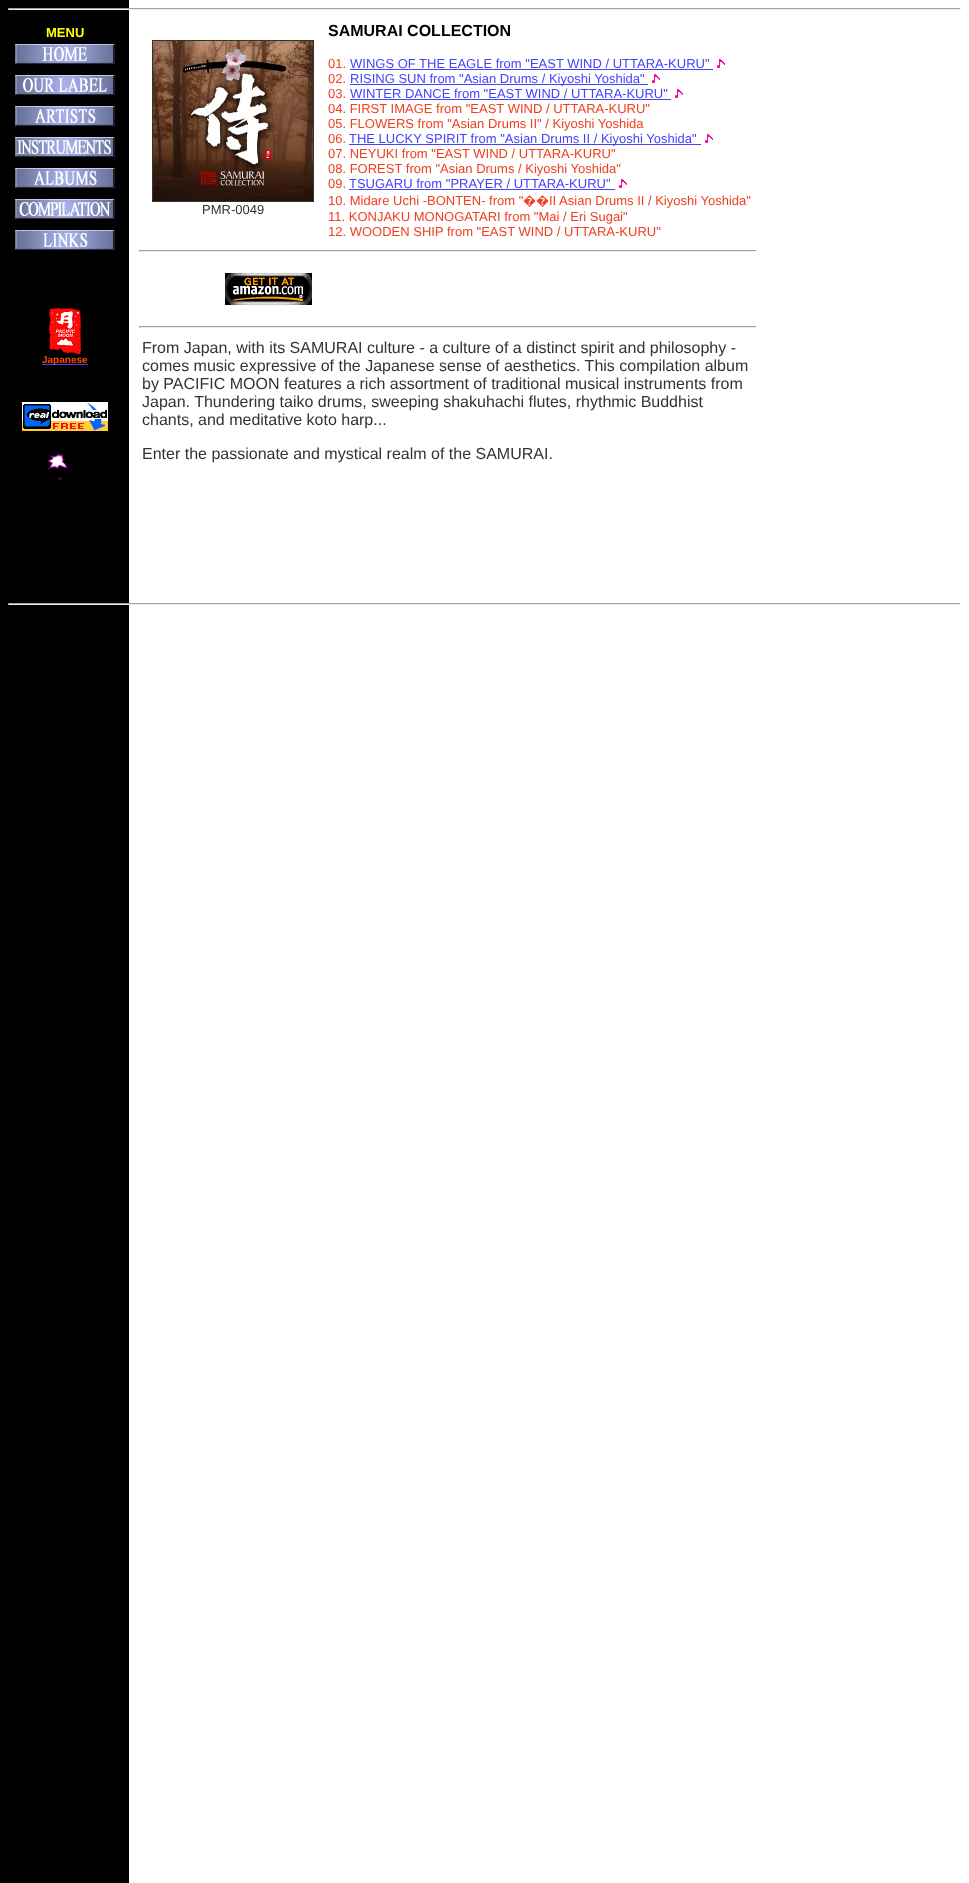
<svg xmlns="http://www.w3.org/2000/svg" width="969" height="1883">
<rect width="100%" height="100%" fill="#fff"/>
<rect width="129" height="1883" fill="#000"/>
<rect x="8" y="8" width="953" height="1" fill="#9f9f9f"/>
<rect x="960" y="8" width="1" height="2" fill="#eee"/>
<rect x="8" y="9" width="953" height="1" fill="#eee"/>
<rect x="8" y="8" width="1" height="2" fill="#9f9f9f"/>
<text x="46" y="37" style="font-family:Liberation Sans;font-size:13px;font-weight:bold;fill:#ff0">MENU</text>
<image x="15" y="44" width="100" height="20" href="media/1.png"/>
<image x="15" y="75" width="100" height="20" href="media/2.png"/>
<image x="15" y="106" width="100" height="20" href="media/3.png"/>
<image x="15" y="137" width="100" height="20" href="media/4.png"/>
<image x="15" y="168" width="100" height="20" href="media/5.png"/>
<image x="15" y="199" width="100" height="20" href="media/6.png"/>
<image x="15" y="230" width="100" height="20" href="media/7.png"/>
<image x="49" y="308" width="32" height="46" href="media/8.png"/>
<rect x="42" y="364" width="46" height="1" fill="#44f"/>
<text x="42" y="363" style="font-family:Liberation Sans;font-size:10px;font-weight:bold;fill:#ff4500">Japanese</text>
<image x="22" y="402" width="86" height="29" href="media/9.png"/>
<image x="46" y="453" width="22" height="27" href="media/10.png"/>
<rect x="152.5" y="40.5" width="161" height="161" fill="none" stroke="#333"/>
<image x="153" y="41" width="160" height="160" href="media/11.png"/>
<text x="202" y="214" style="font-family:Liberation Sans;font-size:13px;fill:#333">PMR-0049</text>
<text x="328" y="36" style="font-family:Liberation Sans;font-size:16px;font-weight:bold;fill:#000">SAMURAI COLLECTION</text>
<text x="328" y="68" style="font-family:Liberation Sans;font-size:13px;fill:#f04020">01.</text>
<text x="350" y="68" style="font-family:Liberation Sans;font-size:13px;fill:#44f">WINGS OF THE EAGLE from "EAST WIND / UTTARA-KURU"</text>
<rect x="350" y="69" width="363" height="1" fill="#44f"/>
<image x="717" y="59" width="8" height="9" href="media/12.png"/>
<text x="328" y="83" style="font-family:Liberation Sans;font-size:13px;fill:#f04020">02.</text>
<rect x="350" y="84" width="298" height="1" fill="#44f"/>
<text x="350" y="83" style="font-family:Liberation Sans;font-size:13px;fill:#44f">RISING SUN from "Asian Drums / Kiyoshi Yoshida"</text>
<image x="652" y="74" width="8" height="9" href="media/12.png"/>
<text x="328" y="98" style="font-family:Liberation Sans;font-size:13px;fill:#f04020">03.</text>
<text x="350" y="98" style="font-family:Liberation Sans;font-size:13px;fill:#44f">WINTER DANCE from "EAST WIND / UTTARA-KURU"</text>
<rect x="350" y="99" width="321" height="1" fill="#44f"/>
<image x="675" y="89" width="8" height="9" href="media/12.png"/>
<text x="328" y="113" style="font-family:Liberation Sans;font-size:13px;fill:#f04020">04. FIRST IMAGE from "EAST WIND / UTTARA-KURU"</text>
<text x="328" y="128" style="font-family:Liberation Sans;font-size:13px;fill:#f04020">05. FLOWERS from "Asian Drums II" / Kiyoshi Yoshida</text>
<text x="328" y="143" style="font-family:Liberation Sans;font-size:13px;fill:#f04020">06.</text>
<rect x="349" y="144" width="352" height="1" fill="#44f"/>
<text x="349" y="143" style="font-family:Liberation Sans;font-size:13px;fill:#44f">THE LUCKY SPIRIT from "Asian Drums II / Kiyoshi Yoshida"</text>
<image x="705" y="134" width="8" height="9" href="media/12.png"/>
<text x="328" y="158" style="font-family:Liberation Sans;font-size:13px;fill:#f04020">07. NEYUKI from "EAST WIND / UTTARA-KURU"</text>
<text x="328" y="173" style="font-family:Liberation Sans;font-size:13px;fill:#f04020">08. FOREST from "Asian Drums / Kiyoshi Yoshida"</text>
<text x="328" y="188" style="font-family:Liberation Sans;font-size:13px;fill:#f04020">09.</text>
<text x="349" y="188" style="font-family:Liberation Sans;font-size:13px;fill:#44f">TSUGARU from "PRAYER / UTTARA-KURU"</text>
<rect x="349" y="189" width="266" height="1" fill="#44f"/>
<image x="619" y="179" width="8" height="9" href="media/12.png"/>
<text x="328" y="205" style="font-family:Liberation Sans;font-size:13px;fill:#f04020">10. Midare Uchi -BONTEN- from "</text>
<text x="523" y="205" style="font-family:Noto Sans;font-size:13px;fill:#f04020">��</text>
<text x="549" y="205" style="font-family:Liberation Sans;font-size:13px;fill:#f04020">II Asian Drums II / Kiyoshi Yoshida"</text>
<text x="328" y="221" style="font-family:Liberation Sans;font-size:13px;fill:#f04020">11. KONJAKU MONOGATARI from "Mai / Eri Sugai"</text>
<text x="328" y="236" style="font-family:Liberation Sans;font-size:13px;fill:#f04020">12. WOODEN SHIP from "EAST WIND / UTTARA-KURU"</text>
<rect x="139" y="250" width="618" height="1" fill="#9f9f9f"/>
<rect x="756" y="250" width="1" height="2" fill="#eee"/>
<rect x="139" y="251" width="618" height="1" fill="#eee"/>
<rect x="139" y="250" width="1" height="2" fill="#9f9f9f"/>
<image x="225" y="273" width="87" height="32" href="media/13.png"/>
<rect x="139" y="326" width="618" height="1" fill="#9f9f9f"/>
<rect x="756" y="326" width="1" height="2" fill="#eee"/>
<rect x="139" y="327" width="618" height="1" fill="#eee"/>
<rect x="139" y="326" width="1" height="2" fill="#9f9f9f"/>
<text x="142" y="353" style="font-family:Liberation Sans;font-size:16px;fill:#333">From Japan, with its SAMURAI culture - a culture of a distinct spirit and philosophy -</text>
<text x="142" y="371" style="font-family:Liberation Sans;font-size:16px;fill:#333">comes music expressive of the Japanese sense of aesthetics. This compilation album</text>
<text x="142" y="389" style="font-family:Liberation Sans;font-size:16px;fill:#333">by PACIFIC MOON features a rich assortment of traditional musical instruments from</text>
<text x="142" y="407" style="font-family:Liberation Sans;font-size:16px;fill:#333">Japan. Thundering taiko drums, sweeping shakuhachi flutes, rhythmic Buddhist</text>
<text x="142" y="425" style="font-family:Liberation Sans;font-size:16px;fill:#333">chants, and meditative koto harp...</text>
<text x="142" y="459" style="font-family:Liberation Sans;font-size:16px;fill:#333">Enter the passionate and mystical realm of the SAMURAI.</text>
<rect x="8" y="603" width="953" height="1" fill="#9f9f9f"/>
<rect x="960" y="603" width="1" height="2" fill="#eee"/>
<rect x="8" y="604" width="953" height="1" fill="#eee"/>
<rect x="8" y="603" width="1" height="2" fill="#9f9f9f"/>
</svg>
